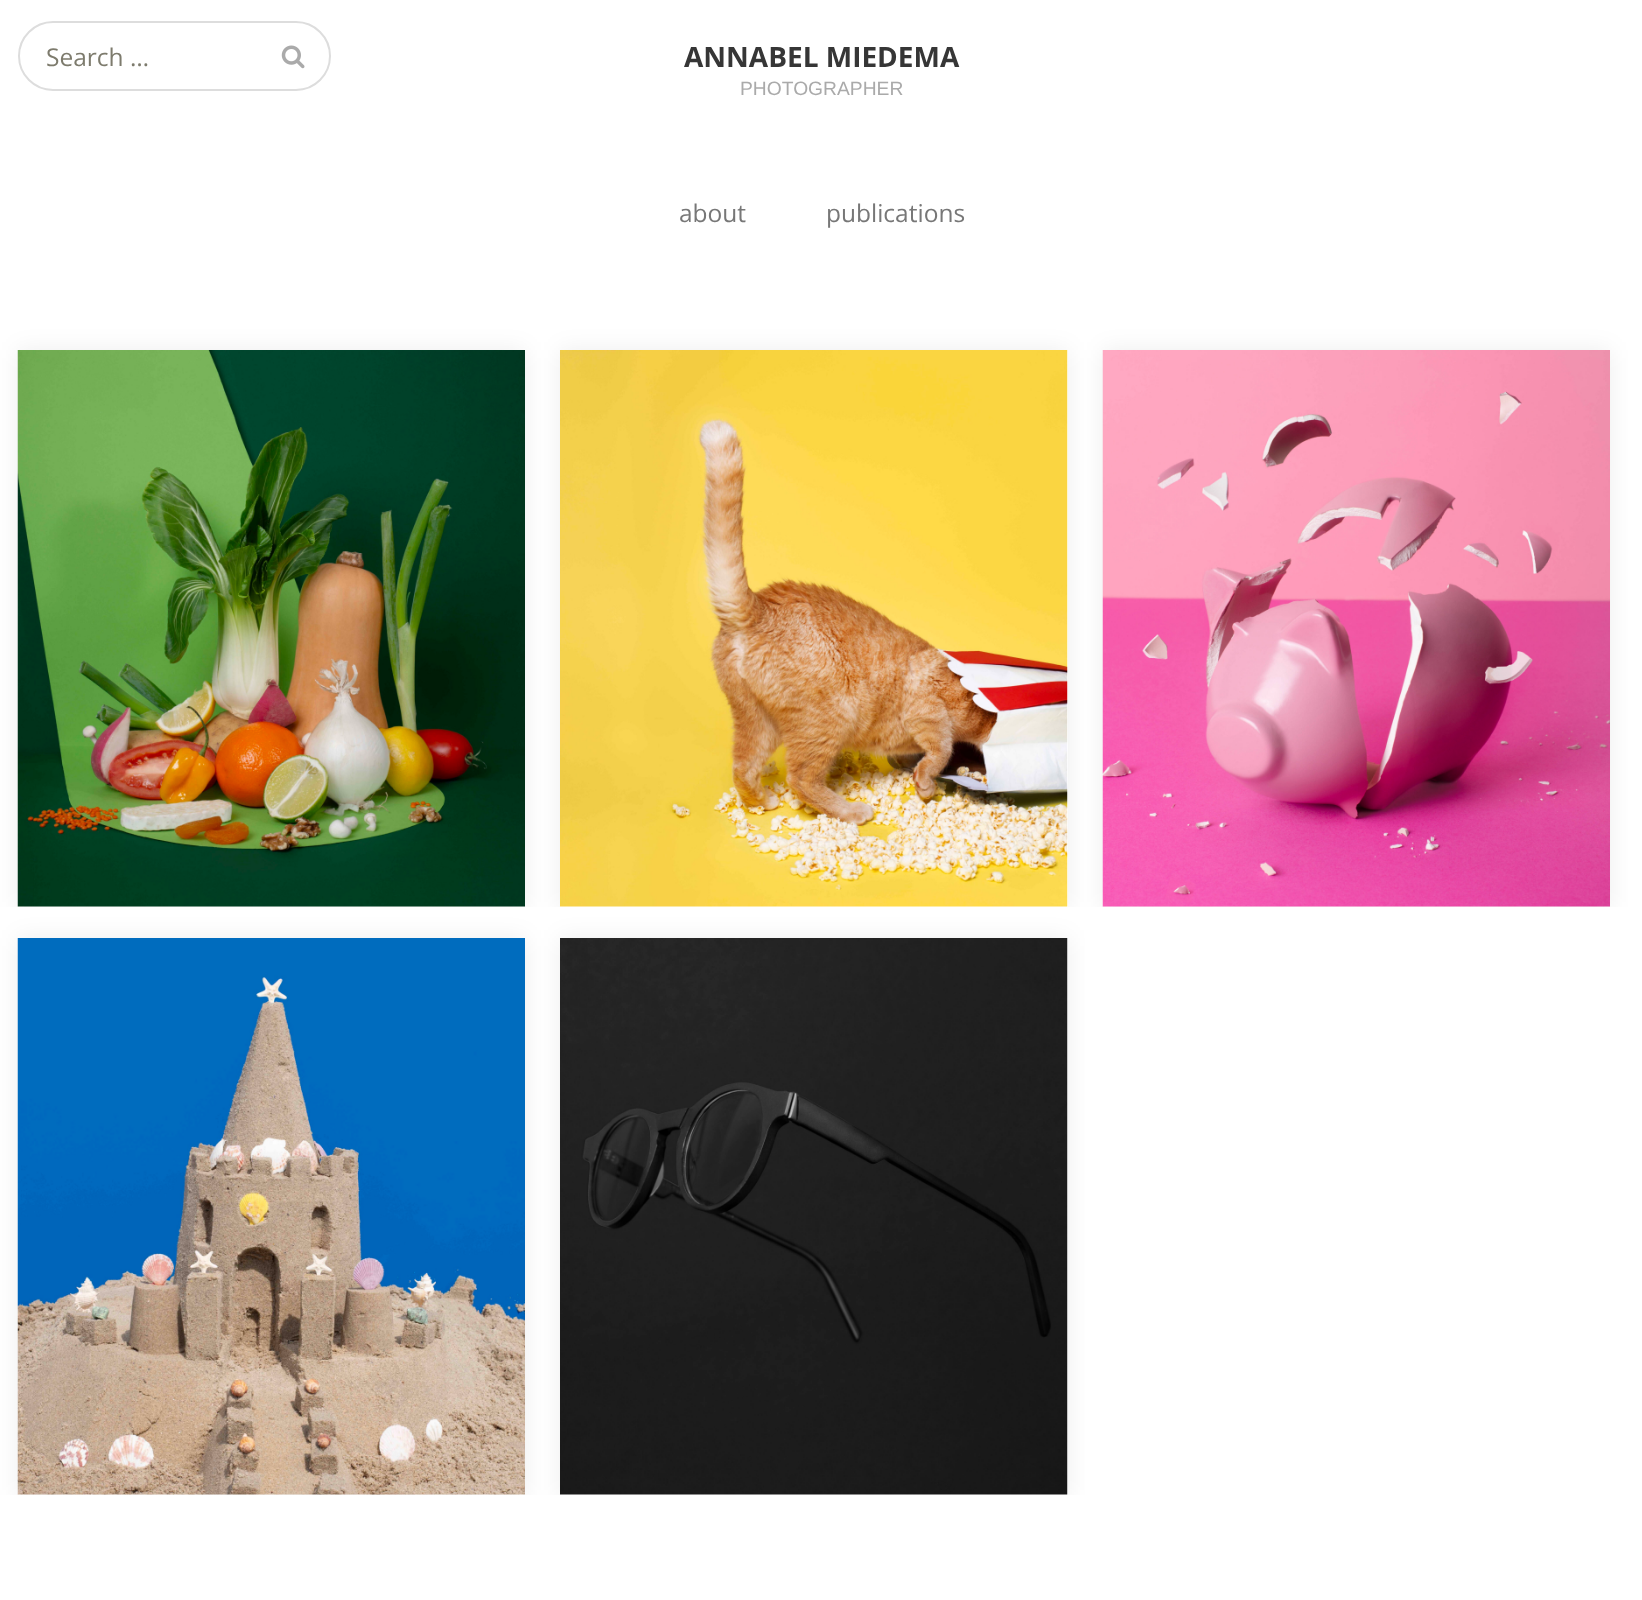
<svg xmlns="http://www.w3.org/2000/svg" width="1642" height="1600">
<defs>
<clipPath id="clip1"><rect x="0" y="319" width="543" height="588"/></clipPath>
<clipPath id="clip2"><rect x="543" y="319" width="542" height="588"/></clipPath>
<clipPath id="clip3"><rect x="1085" y="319" width="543" height="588"/></clipPath>
<clipPath id="clip4"><rect x="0" y="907" width="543" height="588"/></clipPath>
<clipPath id="clip5"><rect x="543" y="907" width="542" height="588"/></clipPath>
</defs>
<rect width="100%" height="100%" fill="#fff"/>
<rect x="19" y="22" width="311" height="68" rx="34" fill="none" stroke="#ddd" stroke-width="2"/>
<text x="46" y="66" style="font-family:Open Sans;font-size:24.5px;fill:#7d7b6d">Search …</text>
<image x="281" y="45" width="24" height="24" href="media/1.png"/>
<text x="684" y="67" style="font-family:Open Sans;font-size:28px;font-weight:bold;fill:#363636">ANNABEL MIEDEMA</text>
<text x="740" y="95" style="font-family:Liberation Sans;font-size:19.25px;fill:#aaa">PHOTOGRAPHER</text>
<text x="679" y="222" style="font-family:Open Sans;font-size:24.5px;fill:#777">about</text>
<text x="826" y="222" style="font-family:Open Sans;font-size:24.5px;fill:#777">publications</text>
<g clip-path="url(#clip1)">
<rect x="18" y="350" width="507" height="560" fill="#00000012" filter="blur(11.5px)"/>
</g>
<image x="17" y="350" width="508" height="557" href="media/2.png"/>
<g clip-path="url(#clip2)">
<rect x="560" y="350" width="508" height="560" fill="#00000012" filter="blur(11.5px)"/>
</g>
<rect x="560" y="350" width="508" height="557" fill="#fff"/>
<image x="560" y="350" width="508" height="557" href="media/3.png"/>
<g clip-path="url(#clip3)">
<rect x="1103" y="350" width="507" height="560" fill="#00000012" filter="blur(11.5px)"/>
</g>
<image x="1102" y="350" width="508" height="557" href="media/4.png"/>
<g clip-path="url(#clip4)">
<rect x="18" y="938" width="507" height="560" fill="#00000012" filter="blur(11.5px)"/>
</g>
<image x="17" y="938" width="508" height="557" href="media/5.png"/>
<g clip-path="url(#clip5)">
<rect x="560" y="938" width="508" height="560" fill="#00000012" filter="blur(11.5px)"/>
</g>
<rect x="560" y="938" width="508" height="557" fill="#fff"/>
<image x="560" y="938" width="508" height="557" href="media/6.png"/>
</svg>
